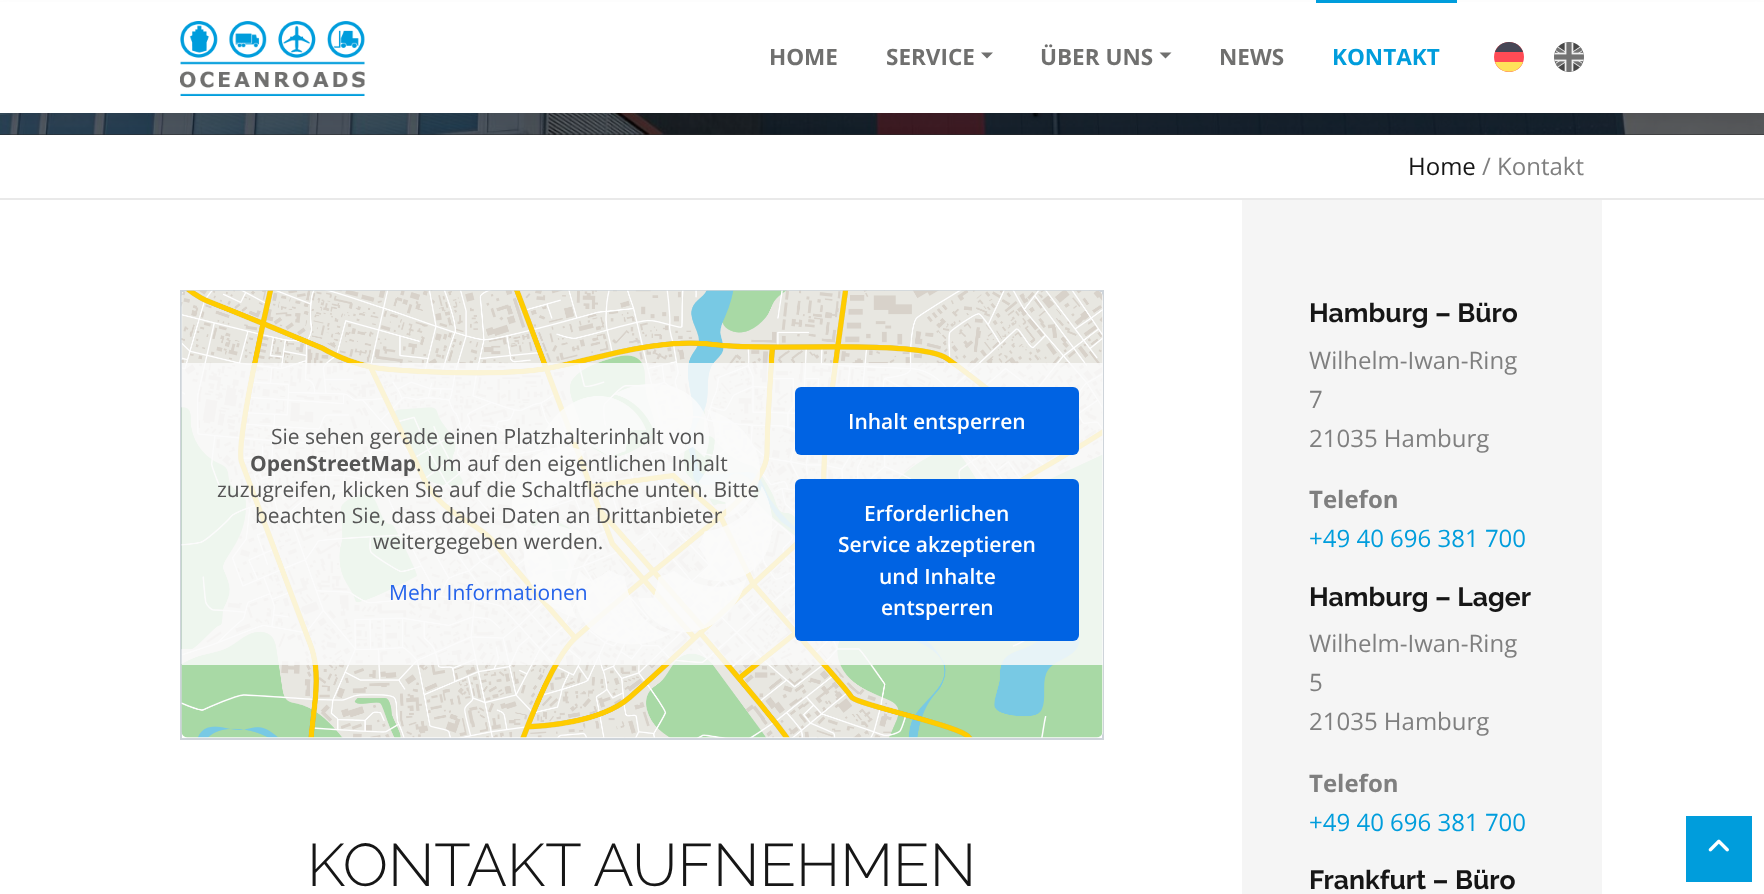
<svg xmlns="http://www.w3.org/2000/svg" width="1764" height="894">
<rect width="100%" height="100%" fill="#fff"/>
<rect y="134" width="1764" height="1" fill="#292929"/>
<image x="0" y="113" width="1764" height="22" href="media/3.png"/>
<rect y="8" width="1764" height="112" fill="#3232320f" filter="blur(7.5px)"/>
<rect y="2" width="1764" height="111" fill="#fff"/>
<image x="180" y="21" width="185" height="75" href="media/1.png"/>
<text x="769" y="65" style="font-family:Open Sans;font-size:22.5px;font-weight:bold;fill:#70706f">HOME</text>
<text x="886" y="65" style="font-family:Open Sans;font-size:22.5px;font-weight:bold;fill:#70706f">SERVICE</text>
<path d="M981 52.5h12l-6 6z" fill="#70706f"/>
<text x="1040" y="65" style="font-family:Open Sans;font-size:22.5px;font-weight:bold;fill:#70706f">ÜBER UNS</text>
<path d="M1159.5 52.5h12l-6 6z" fill="#70706f"/>
<text x="1219" y="65" style="font-family:Open Sans;font-size:22.5px;font-weight:bold;fill:#70706f">NEWS</text>
<rect x="1316" width="141" height="3" fill="#009ddc"/>
<text x="1332" y="65" style="font-family:Open Sans;font-size:22.5px;font-weight:bold;fill:#009ddc">KONTAKT</text>
<path d="M1509 42c8.5 0 15 6.5 15 15c0 8.5-6.5 15-15 15c-8.5 0-15-6.5-15-15c0-8.5 6.5-15 15-15z" fill="#ff4b55"/>
<path d="M1523 62h-28c4.5 13 23.5 13 28 0z" fill="#ffe15a"/>
<path d="M1509 42c-6.5 0-12 4-14 10h28c-2-6-7.5-10-14-10z" fill="#464655"/>
<image x="1554" y="42" width="30" height="30" href="media/2.png"/>
<rect y="198" width="1764" height="2" fill="#e9e9e9"/>
<text x="1408" y="175" style="font-family:Open Sans;font-size:24px;fill:#161616">Home</text>
<text x="1482" y="175" style="font-family:Open Sans;font-size:24px;fill:#7f7f7f">/ Kontakt</text>
<rect x="181" y="291" width="922" height="448" fill="none" stroke="#ced4da" stroke-width="2"/>
<rect x="182" y="291" width="921" height="447" rx="6" fill="#fafafa"/>
<image x="181" y="290" width="922" height="448" href="media/4.png"/>
<rect x="182" y="363" width="921" height="302" fill="#fafafad9"/>
<text x="271" y="444" style="font-family:Open Sans;font-size:21px;fill:#555">Sie sehen gerade einen Platzhalterinhalt von</text>
<text x="250" y="471" style="font-family:Open Sans;font-size:21px;font-weight:bold;fill:#555">OpenStreetMap</text>
<text x="416" y="471" style="font-family:Open Sans;font-size:21px;fill:#555">. Um auf den eigentlichen Inhalt</text>
<text x="217" y="497" style="font-family:Open Sans;font-size:21px;fill:#555">zuzugreifen, klicken Sie auf die Schaltfläche unten. Bitte</text>
<text x="255" y="523" style="font-family:Open Sans;font-size:21px;fill:#555">beachten Sie, dass dabei Daten an Drittanbieter</text>
<text x="373" y="549" style="font-family:Open Sans;font-size:21px;fill:#555">weitergegeben werden.</text>
<text x="389" y="600" style="font-family:Open Sans;font-size:21px;fill:#2563eb">Mehr Informationen</text>
<rect x="795" y="387" width="284" height="68" rx="6" fill="#0063e3"/>
<text x="848" y="429" style="font-family:Open Sans;font-size:21px;font-weight:600;fill:#fff">Inhalt entsperren</text>
<rect x="795" y="479" width="284" height="162" rx="6" fill="#0063e3"/>
<text x="864" y="521" style="font-family:Open Sans;font-size:21px;font-weight:600;fill:#fff">Erforderlichen</text>
<text x="838" y="552" style="font-family:Open Sans;font-size:21px;font-weight:600;fill:#fff">Service akzeptieren</text>
<text x="879" y="584" style="font-family:Open Sans;font-size:21px;font-weight:600;fill:#fff">und Inhalte</text>
<text x="881" y="615" style="font-family:Open Sans;font-size:21px;font-weight:600;fill:#fff">entsperren</text>
<text x="307" y="886" style="font-family:'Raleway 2';font-size:60px;font-weight:100;fill:#161616">KONTAKT AUFNEHMEN</text>
<rect x="1242" y="200" width="360" height="694" fill="#f5f5f5"/>
<text x="1309" y="322" style="font-family:Raleway;font-size:26.5px;font-weight:100;fill:#161616">Hamburg – Büro</text>
<text x="1309" y="369" style="font-family:Open Sans;font-size:24px;fill:#7f7f7f">Wilhelm-Iwan-Ring</text>
<text x="1309" y="408" style="font-family:Open Sans;font-size:24px;fill:#7f7f7f">7</text>
<text x="1309" y="447" style="font-family:Open Sans;font-size:24px;fill:#7f7f7f">21035 Hamburg</text>
<text x="1309" y="508" style="font-family:Open Sans;font-size:24px;font-weight:bold;fill:#7f7f7f">Telefon</text>
<text x="1309" y="547" style="font-family:Open Sans;font-size:24px;fill:#009ddc">+49 40 696 381 700</text>
<text x="1309" y="606" style="font-family:Raleway;font-size:26.5px;font-weight:100;fill:#161616">Hamburg – Lager</text>
<text x="1309" y="652" style="font-family:Open Sans;font-size:24px;fill:#7f7f7f">Wilhelm-Iwan-Ring</text>
<text x="1309" y="691" style="font-family:Open Sans;font-size:24px;fill:#7f7f7f">5</text>
<text x="1309" y="730" style="font-family:Open Sans;font-size:24px;fill:#7f7f7f">21035 Hamburg</text>
<text x="1309" y="792" style="font-family:Open Sans;font-size:24px;font-weight:bold;fill:#7f7f7f">Telefon</text>
<text x="1309" y="831" style="font-family:Open Sans;font-size:24px;fill:#009ddc">+49 40 696 381 700</text>
<text x="1309" y="889" style="font-family:Raleway;font-size:26.5px;font-weight:100;fill:#161616">Frankfurt – Büro</text>
<rect x="1686" y="816" width="66" height="66" fill="#009ddc"/>
<image x="1708" y="839" width="21" height="13" href="media/5.png"/>
</svg>
